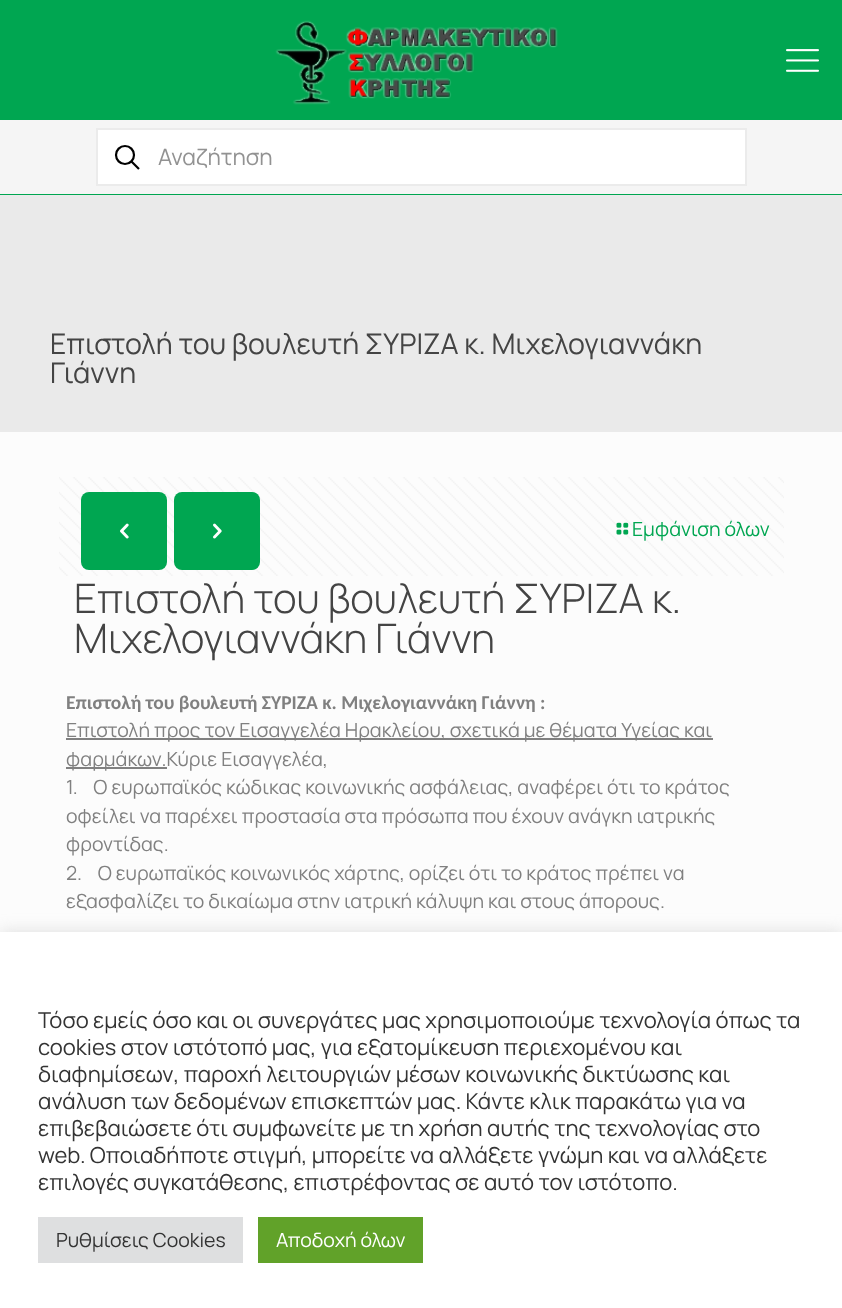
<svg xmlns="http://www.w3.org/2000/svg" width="842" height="1308">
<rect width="100%" height="100%" fill="#fcfcfc"/>
<rect width="842" height="195" fill="#00a651"/>
<image x="275" y="20" width="283" height="85" href="media/1.png"/>
<image x="786" y="49" width="33" height="23" href="media/2.png"/>
<rect y="120" width="842" height="74" fill="#f5f5f5"/>
<rect x="97" y="129" width="649" height="56" fill="#fff" stroke="#ebebeb" stroke-width="2"/>
<circle cx="125" cy="155" r="9" fill="none" stroke="#000" stroke-width="2.2"/>
<path d="M131.5 161.5l7.5 7.5" fill="none" stroke="#000" stroke-width="2.2"/>
<text x="158" y="165" style="font-family:Manrope;font-size:22.5px;fill:#929292">Αναζήτηση</text>
<rect y="195" width="842" height="237" fill="#eaeaea"/>
<text x="50" y="354" style="font-family:Manrope;font-size:28.5px;fill:#444">Επιστολή του βουλευτή ΣΥΡΙΖΑ κ. Μιχελογιαννάκη</text>
<text x="50" y="383" style="font-family:Manrope;font-size:28.5px;fill:#444">Γιάννη</text>
<image x="59" y="477" width="725" height="99" href="media/3.png"/>
<rect x="81" y="492" width="86" height="78" rx="8" fill="#00a651"/>
<image x="120" y="523" width="9" height="16" href="media/4.png"/>
<rect x="174" y="492" width="86" height="78" rx="8" fill="#00a651"/>
<image x="213" y="523" width="9" height="16" href="media/5.png"/>
<image x="616" y="522" width="13" height="13" href="media/6.png"/>
<text x="632" y="536" style="font-family:Manrope;font-size:19.5px;fill:#00a651">Εμφάνιση όλων</text>
<text x="74" y="613" style="font-family:Manrope;font-size:40.5px;font-weight:300;fill:#444">Επιστολή του βουλευτή ΣΥΡΙΖΑ κ.</text>
<text x="74" y="653" style="font-family:Manrope;font-size:40.5px;font-weight:300;fill:#444">Μιχελογιαννάκη Γιάννη</text>
<text x="66" y="709" style="font-family:Carlito;font-size:19.5px;font-weight:bold;fill:#808080">Επιστολή του βουλευτή ΣΥΡΙΖΑ κ. Μιχελογιαννάκη Γιάννη :</text>
<rect x="66" y="738" width="647" height="2" fill="#808080"/>
<text x="66" y="737" style="font-family:Manrope;font-size:19.5px;fill:#808080">Επιστολή προς τον Εισαγγελέα Ηρακλείου, σχετικά με θέματα Υγείας και</text>
<rect x="66" y="767" width="101" height="2" fill="#808080"/>
<text x="66" y="766" style="font-family:Manrope;font-size:19.5px;fill:#808080">φαρμάκων.Κύριε Εισαγγελέα,</text>
<text x="66" y="794" style="font-family:Manrope;font-size:19.5px;fill:#808080" xml:space="preserve">1.    Ο ευρωπαϊκός κώδικας κοινωνικής ασφάλειας, αναφέρει ότι το κράτος</text>
<text x="66" y="823" style="font-family:Manrope;font-size:19.5px;fill:#808080">οφείλει να παρέχει προστασία στα πρόσωπα που έχουν ανάγκη ιατρικής</text>
<text x="66" y="851" style="font-family:Manrope;font-size:19.5px;fill:#808080">φροντίδας.</text>
<text x="66" y="880" style="font-family:Manrope;font-size:19.5px;fill:#808080" xml:space="preserve">2.    Ο ευρωπαϊκός κοινωνικός χάρτης, ορίζει ότι το κράτος πρέπει να</text>
<text x="66" y="908" style="font-family:Manrope;font-size:19.5px;fill:#808080">εξασφαλίζει το δικαίωμα στην ιατρική κάλυψη και στους άπορους.</text>
<rect y="930" width="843" height="377" fill="#acabab4d" filter="blur(7.5px)"/>
<rect y="932" width="842" height="376" fill="#fff"/>
<text x="38" y="1028" style="font-family:Manrope;font-size:22px;fill:#333">Τόσο εμείς όσο και οι συνεργάτες μας χρησιμοποιούμε τεχνολογία όπως τα</text>
<text x="38" y="1055" style="font-family:Manrope;font-size:22px;fill:#333">cookies στον ιστότοπό μας, για εξατομίκευση περιεχομένου και</text>
<text x="38" y="1082" style="font-family:Manrope;font-size:22px;fill:#333">διαφημίσεων, παροχή λειτουργιών μέσων κοινωνικής δικτύωσης και</text>
<text x="38" y="1109" style="font-family:Manrope;font-size:22px;fill:#333">ανάλυση των δεδομένων επισκεπτών μας. Κάντε κλικ παρακάτω για να</text>
<text x="38" y="1136" style="font-family:Manrope;font-size:22px;fill:#333">επιβεβαιώσετε ότι συμφωνείτε με τη χρήση αυτής της τεχνολογίας στο</text>
<text x="38" y="1163" style="font-family:Manrope;font-size:22px;fill:#333">web. Οποιαδήποτε στιγμή, μπορείτε να αλλάξετε γνώμη και να αλλάξετε</text>
<text x="38" y="1190" style="font-family:Manrope;font-size:22px;fill:#333">επιλογές συγκατάθεσης, επιστρέφοντας σε αυτό τον ιστότοπο.</text>
<rect x="38" y="1217" width="205" height="46" fill="#dedfe0"/>
<text x="56" y="1247" style="font-family:Manrope;font-size:19.5px;fill:#333">Ρυθμίσεις Cookies</text>
<rect x="258" y="1217" width="165" height="46" fill="#61a229"/>
<text x="276" y="1247" style="font-family:Manrope;font-size:19.5px;fill:#fff">Αποδοχή όλων</text>
</svg>
